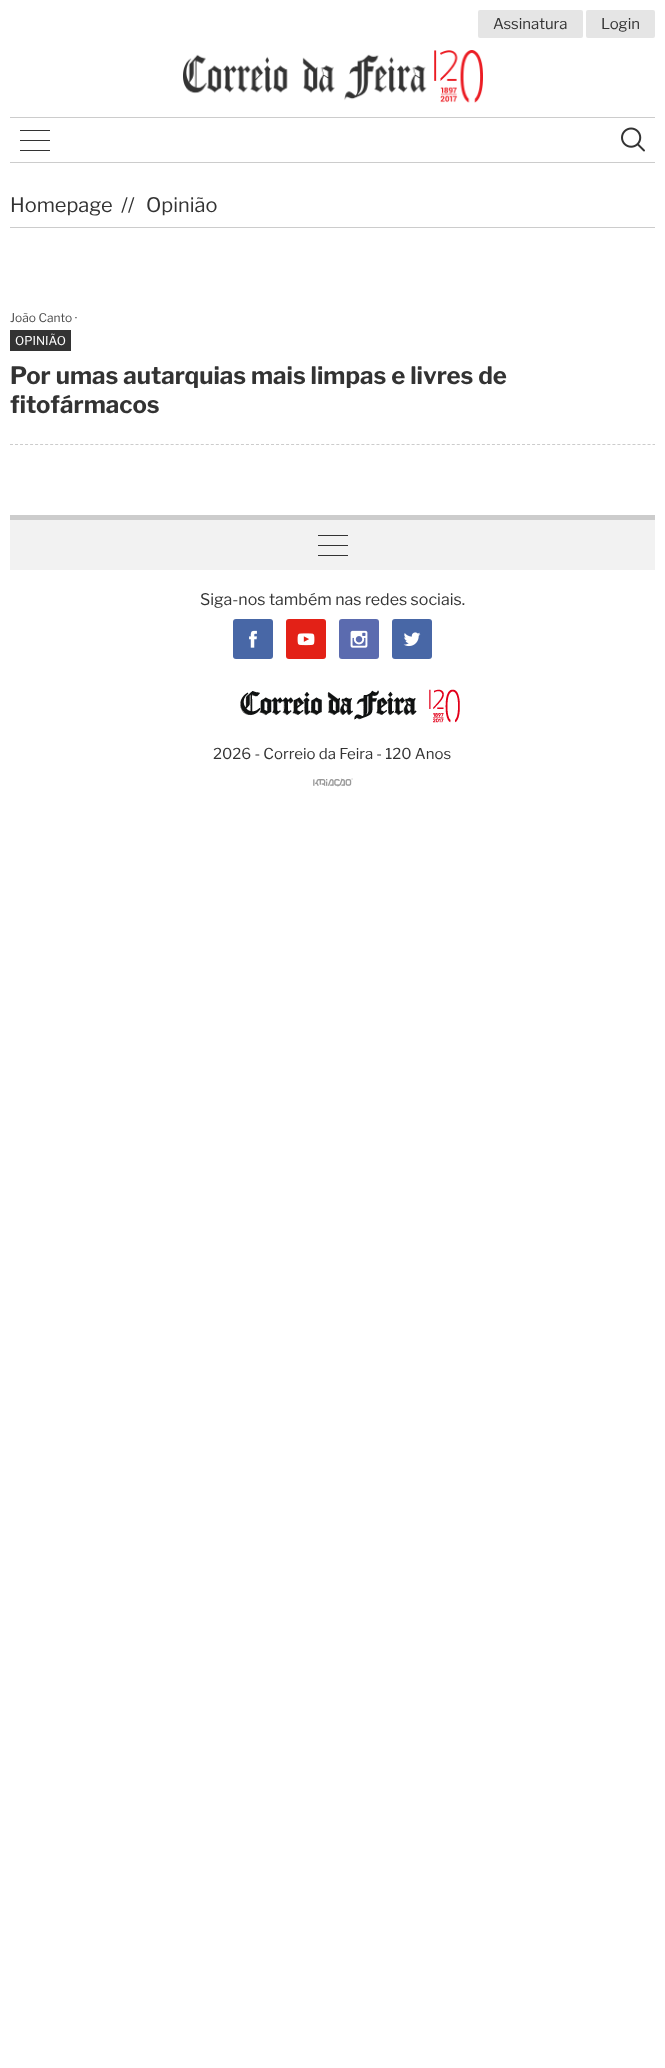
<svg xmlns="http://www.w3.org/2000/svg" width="665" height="2068">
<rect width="100%" height="100%" fill="#fff"/>
<rect x="478" y="10" width="105" height="28" rx="2" fill="#e5e5e5"/>
<text x="493" y="29" style="font-family:Libre Franklin;font-size:15px;fill:#333">Assinatura</text>
<rect x="586" y="10" width="69" height="28" rx="2" fill="#e5e5e5"/>
<text x="601" y="29" style="font-family:Libre Franklin;font-size:15px;fill:#333">Login</text>
<image x="183" y="50" width="300" height="53" href="media/1.png"/>
<rect x="10" y="117" width="645" height="1" fill="#ccc"/>
<rect x="10" y="162" width="645" height="1" fill="#ccc"/>
<rect x="20" y="130" width="30" height="1" fill="#333"/>
<rect x="20" y="140" width="30" height="1" fill="#333"/>
<rect x="20" y="150" width="30" height="1" fill="#333"/>
<image x="621" y="127" width="24" height="25" href="media/2.png"/>
<rect x="10" y="227" width="645" height="1" fill="#ccc"/>
<text x="10" y="212" style="font-family:Libre Franklin;font-size:20px;fill:#333">Homepage</text>
<text x="121" y="212" style="font-family:Libre Franklin;font-size:20px;fill:#333">//</text>
<text x="146" y="212" style="font-family:Libre Franklin;font-size:20px;fill:#333">Opinião</text>
<path d="M10 444.5h645" fill="none" stroke="#ccc" stroke-dasharray="3 2.02"/>
<text x="10" y="322" style="font-family:Libre Franklin;font-size:12px;fill:#4d4d4d">João Canto ·</text>
<rect x="10" y="330" width="61" height="21" fill="#333"/>
<text x="15" y="345" style="font-family:Libre Franklin;font-size:12px;fill:#fff">OPINIÃO</text>
<text x="10" y="384" style="font-family:Libre Franklin;font-size:24px;font-weight:bold;fill:#333">Por umas autarquias mais limpas e livres de</text>
<text x="10" y="413" style="font-family:Libre Franklin;font-size:24px;font-weight:bold;fill:#333">fitofármacos</text>
<rect x="10" y="520" width="645" height="50" fill="#f2f2f2"/>
<rect x="10" y="515" width="645" height="5" fill="#ccc"/>
<rect x="318" y="535" width="30" height="1" fill="#333"/>
<rect x="318" y="545" width="30" height="1" fill="#333"/>
<rect x="318" y="555" width="30" height="1" fill="#333"/>
<text x="200" y="605" style="font-family:Libre Franklin;font-size:16px;fill:#333">Siga-nos também nas redes sociais.</text>
<rect x="233" y="619" width="40" height="40" rx="3" fill="#4867a6"/>
<image x="249" y="630" width="8" height="18" href="media/3.png"/>
<rect x="286" y="619" width="40" height="40" rx="3" fill="#e32117"/>
<image x="297" y="633" width="18" height="13" href="media/4.png"/>
<rect x="339" y="619" width="40" height="40" rx="3" fill="#5b6baf"/>
<image x="350" y="630" width="18" height="18" href="media/5.png"/>
<rect x="392" y="619" width="40" height="40" rx="3" fill="#4867a6"/>
<image x="403" y="632" width="18" height="15" href="media/6.png"/>
<image x="240" y="689" width="220" height="34" href="media/7.png"/>
<text x="213" y="759" style="font-family:Libre Franklin;font-size:15px;fill:#333">2026 - Correio da Feira - 120 Anos</text>
<image x="313" y="778" width="40" height="9" href="media/8.png"/>
</svg>
